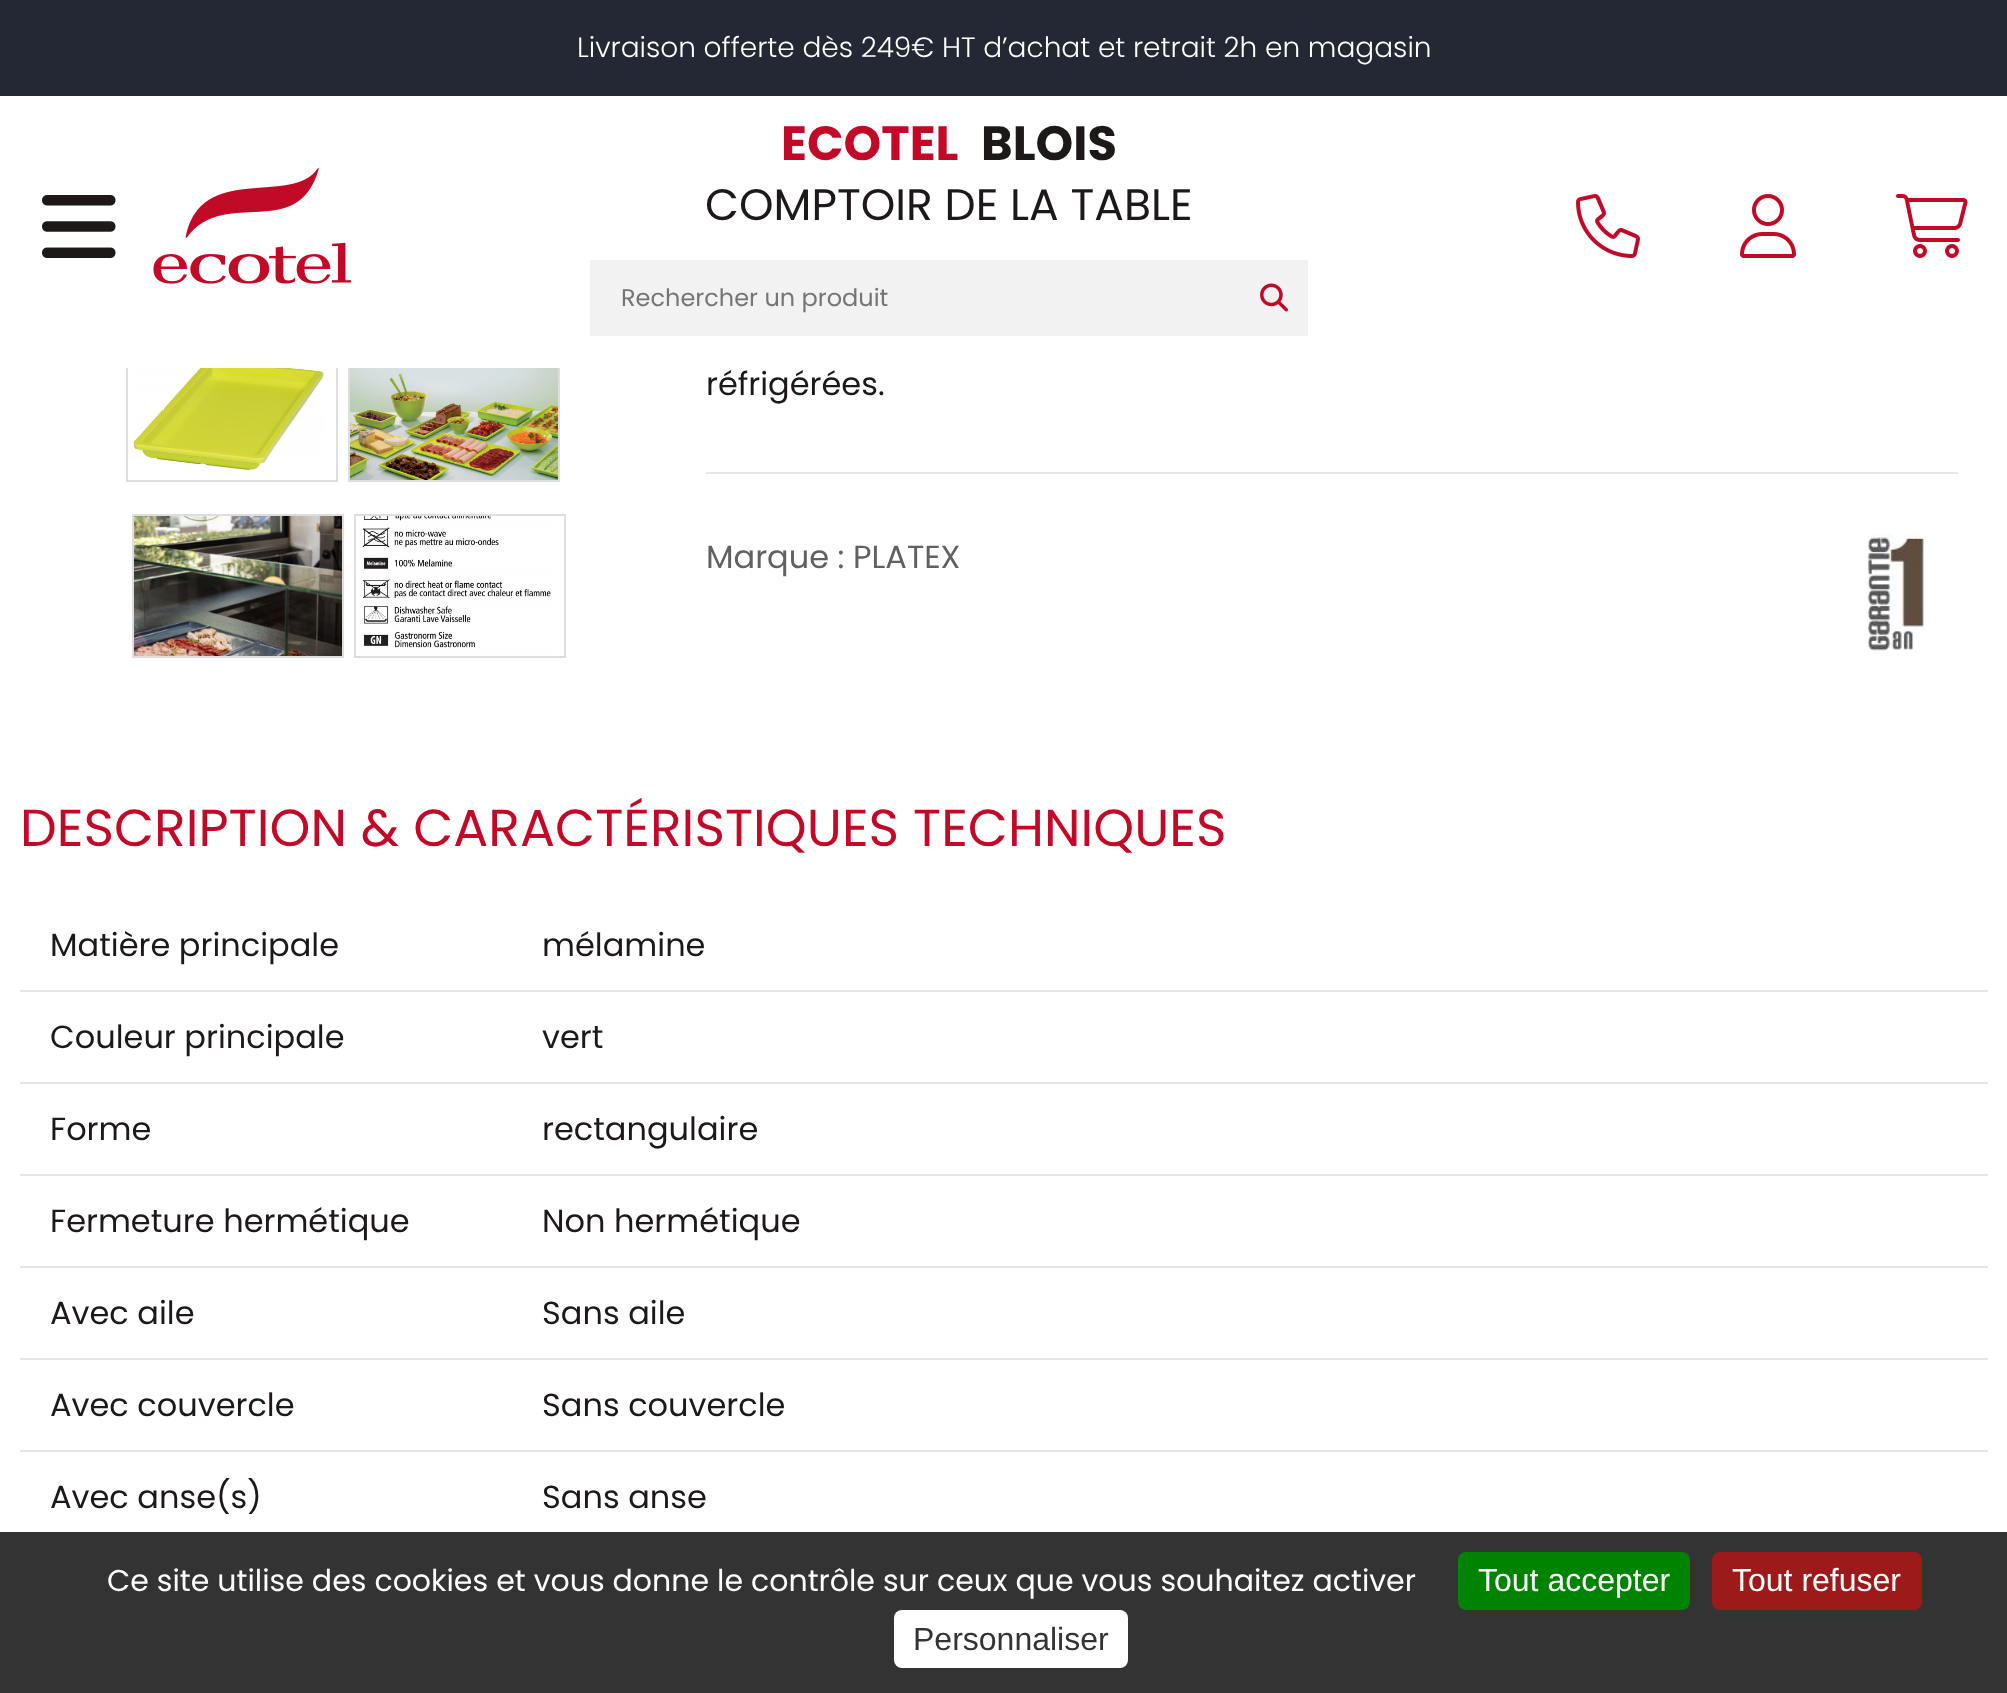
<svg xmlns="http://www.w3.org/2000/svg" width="2007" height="1693">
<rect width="100%" height="100%" fill="#fff"/>
<image x="133" y="368" width="191" height="103" href="media/7.png"/>
<rect x="127" y="339" width="210" height="142" fill="none" stroke="#dedede" stroke-width="2"/>
<image x="350" y="368" width="208" height="112" href="media/8.png"/>
<rect x="349" y="339" width="210" height="142" fill="none" stroke="#dedede" stroke-width="2"/>
<rect x="126" y="338" width="434" height="30" fill="#fff"/>
<rect width="2007" height="96" fill="#232834"/>
<text x="577" y="57" style="font-family:Poppins;font-size:28px;font-weight:300;fill:#fff">Livraison offerte dès 249€ HT d’achat et retrait 2h en magasin</text>
<image x="42" y="195" width="74" height="63" href="media/1.png"/>
<image x="153" y="168" width="199" height="116" href="media/2.png"/>
<text x="781" y="160" style="font-family:Poppins;font-size:48px;font-weight:bold;fill:#c10a27">ECOTEL</text>
<text x="981" y="160" style="font-family:Poppins;font-size:48px;font-weight:bold;fill:#1d1919">BLOIS</text>
<text x="705" y="220" style="font-family:Poppins;font-size:44px;fill:#1d1919">COMPTOIR DE LA TABLE</text>
<rect x="590" y="260" width="718" height="76" fill="#f2f2f2"/>
<text x="621" y="306" style="font-family:Poppins;font-size:24px;fill:#757575">Rechercher un produit</text>
<image x="1260" y="283" width="28" height="29" href="media/3.png"/>
<image x="1576" y="194" width="64" height="64" href="media/4.png"/>
<image x="1740" y="194" width="56" height="64" href="media/5.png"/>
<image x="1896" y="194" width="72" height="64" href="media/6.png"/>
<image x="134" y="516" width="208" height="140" href="media/9.png"/>
<rect x="133" y="515" width="210" height="142" fill="none" stroke="#dedede" stroke-width="2"/>
<image x="362" y="516" width="189" height="140" href="media/10.png"/>
<rect x="355" y="515" width="210" height="142" fill="none" stroke="#dedede" stroke-width="2"/>
<text x="706" y="395" style="font-family:Poppins;font-size:32px;fill:#1d1919">réfrigérées.</text>
<rect x="706" y="472" width="1252" height="2" fill="#e6e6e6"/>
<text x="706" y="568" style="font-family:Poppins;font-size:32px;fill:#616160">Marque : PLATEX</text>
<image x="1867" y="534" width="59" height="120" href="media/11.png"/>
<text x="20" y="846" style="font-family:Poppins;font-size:52px;fill:#c10a27">DESCRIPTION &amp; CARACTÉRISTIQUES TECHNIQUES</text>
<text x="50" y="956" style="font-family:Poppins;font-size:32px;fill:#1d1919">Matière principale</text>
<text x="542" y="956" style="font-family:Poppins;font-size:32px;fill:#1d1919">mélamine</text>
<rect x="20" y="990" width="1968" height="2" fill="#e6e6e6"/>
<text x="50" y="1048" style="font-family:Poppins;font-size:32px;fill:#1d1919">Couleur principale</text>
<text x="542" y="1048" style="font-family:Poppins;font-size:32px;fill:#1d1919">vert</text>
<rect x="20" y="1082" width="1968" height="2" fill="#e6e6e6"/>
<text x="50" y="1140" style="font-family:Poppins;font-size:32px;fill:#1d1919">Forme</text>
<text x="542" y="1140" style="font-family:Poppins;font-size:32px;fill:#1d1919">rectangulaire</text>
<rect x="20" y="1174" width="1968" height="2" fill="#e6e6e6"/>
<text x="50" y="1232" style="font-family:Poppins;font-size:32px;fill:#1d1919">Fermeture hermétique</text>
<text x="542" y="1232" style="font-family:Poppins;font-size:32px;fill:#1d1919">Non hermétique</text>
<rect x="20" y="1266" width="1968" height="2" fill="#e6e6e6"/>
<text x="50" y="1324" style="font-family:Poppins;font-size:32px;fill:#1d1919">Avec aile</text>
<text x="542" y="1324" style="font-family:Poppins;font-size:32px;fill:#1d1919">Sans aile</text>
<rect x="20" y="1358" width="1968" height="2" fill="#e6e6e6"/>
<text x="50" y="1416" style="font-family:Poppins;font-size:32px;fill:#1d1919">Avec couvercle</text>
<text x="542" y="1416" style="font-family:Poppins;font-size:32px;fill:#1d1919">Sans couvercle</text>
<rect x="20" y="1450" width="1968" height="2" fill="#e6e6e6"/>
<text x="50" y="1508" style="font-family:Poppins;font-size:32px;fill:#1d1919">Avec anse(s)</text>
<text x="542" y="1508" style="font-family:Poppins;font-size:32px;fill:#1d1919">Sans anse</text>
<rect y="1532" width="2007" height="161" fill="#333"/>
<text x="107" y="1591" style="font-family:Poppins;font-size:30px;fill:#fff">Ce site utilise des cookies et vous donne le contrôle sur ceux que vous souhaitez activer</text>
<rect x="1458" y="1552" width="232" height="58" rx="8" fill="#008300"/>
<text x="1478" y="1591" style="font-family:Liberation Sans;font-size:32px;fill:#fff">Tout accepter</text>
<rect x="1712" y="1552" width="210" height="58" rx="8" fill="#9c1a1a"/>
<text x="1732" y="1591" style="font-family:Liberation Sans;font-size:32px;fill:#fff">Tout refuser</text>
<rect x="894" y="1610" width="234" height="58" rx="8" fill="#fff"/>
<text x="913" y="1650" style="font-family:Liberation Sans;font-size:32px;fill:#333">Personnaliser</text>
</svg>
